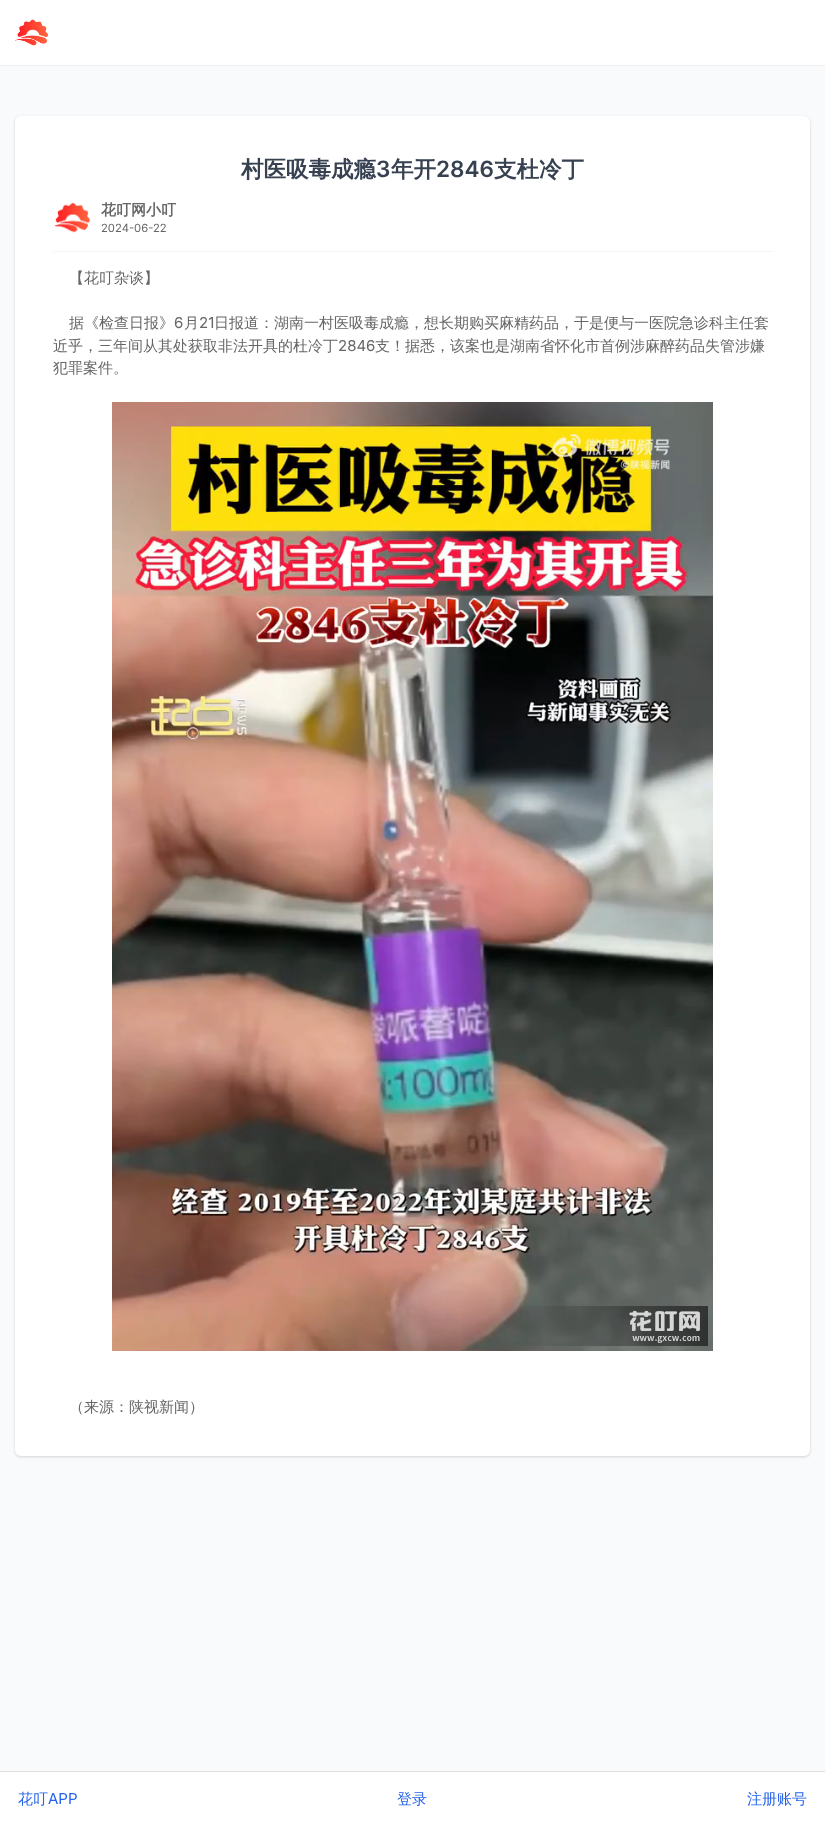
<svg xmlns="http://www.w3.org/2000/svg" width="825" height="1827">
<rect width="100%" height="100%" fill="#f9fafb"/>
<rect width="825" height="65" fill="#fff"/>
<rect y="65" width="825" height="1" fill="#f0f0f0"/>
<rect y="1771" width="825" height="1" fill="#e2dfdf"/>
<image x="15" y="19" width="33" height="27" href="media/1.png"/>
<rect x="15" y="117" width="795" height="1340" rx="6" fill="#0000000f" filter="blur(1px)"/>
<rect x="15" y="117" width="795" height="1340" rx="6" fill="#0000001a" filter="blur(1.5px)"/>
<rect x="15" y="116" width="795" height="1340" rx="6" fill="#fff"/>
<text x="241" y="177" style="font-family:WenQuanYi Zen Hei;font-size:22.5px;font-weight:bold;fill:#374151">村医吸毒成瘾</text>
<text x="376" y="177" style="font-family:Inter;font-size:22.5px;font-weight:600;fill:#374151">3</text>
<text x="391" y="177" style="font-family:WenQuanYi Zen Hei;font-size:22.5px;font-weight:bold;fill:#374151">年开</text>
<text x="436" y="177" style="font-family:Inter;font-size:22.5px;font-weight:600;fill:#374151">2846</text>
<text x="494" y="177" style="font-family:WenQuanYi Zen Hei;font-size:22.5px;font-weight:bold;fill:#374151">支杜冷丁</text>
<rect x="53" y="251" width="720" height="1" fill="#f3f4f6"/>
<image x="54" y="202" width="36" height="31" href="media/2.png"/>
<text x="101" y="215" style="font-family:WenQuanYi Zen Hei;font-size:15px;font-weight:bold;fill:#666">花叮网小叮</text>
<text x="101" y="232" style="font-family:Inter;font-size:11.25px;fill:#666">2024-06-22</text>
<text x="69" y="283" style="font-family:WenQuanYi Zen Hei;font-size:15px;font-weight:500;fill:#666">【花叮杂谈】</text>
<text x="69" y="328" style="font-family:WenQuanYi Zen Hei;font-size:15px;font-weight:500;fill:#666">据《检查日报》</text>
<text x="174" y="328" style="font-family:Inter;font-size:15px;fill:#666">6</text>
<text x="184" y="328" style="font-family:WenQuanYi Zen Hei;font-size:15px;font-weight:500;fill:#666">月</text>
<text x="199" y="328" style="font-family:Inter;font-size:15px;fill:#666">21</text>
<text x="214" y="328" style="font-family:WenQuanYi Zen Hei;font-size:15px;font-weight:500;fill:#666">日报道：湖南一村医吸毒成瘾，想长期购买麻精药品，于是便与一医院急诊科主任套</text>
<text x="53" y="351" style="font-family:WenQuanYi Zen Hei;font-size:15px;font-weight:500;fill:#666">近乎，三年间从其处获取非法开具的杜冷丁</text>
<text x="338" y="351" style="font-family:Inter;font-size:15px;fill:#666">2846</text>
<text x="375" y="351" style="font-family:WenQuanYi Zen Hei;font-size:15px;font-weight:500;fill:#666">支！据悉，该案也是湖南省怀化市首例涉麻醉药品失管涉嫌</text>
<text x="53" y="373" style="font-family:WenQuanYi Zen Hei;font-size:15px;font-weight:500;fill:#666">犯罪案件。</text>
<image x="112" y="402" width="601" height="949" href="media/3.png"/>
<text x="69" y="1412" style="font-family:WenQuanYi Zen Hei;font-size:15px;font-weight:500;fill:#666">（来源：陕视新闻）</text>
<rect y="1772" width="825" height="55" fill="#fff"/>
<text x="18" y="1804" style="font-family:WenQuanYi Zen Hei;font-size:15px;font-weight:500;fill:#2563eb">花叮</text>
<text x="48" y="1804" style="font-family:Inter;font-size:15px;fill:#2563eb">APP</text>
<text x="397" y="1804" style="font-family:WenQuanYi Zen Hei;font-size:15px;font-weight:500;fill:#2563eb">登录</text>
<text x="747" y="1804" style="font-family:WenQuanYi Zen Hei;font-size:15px;font-weight:500;fill:#2563eb">注册账号</text>
</svg>
